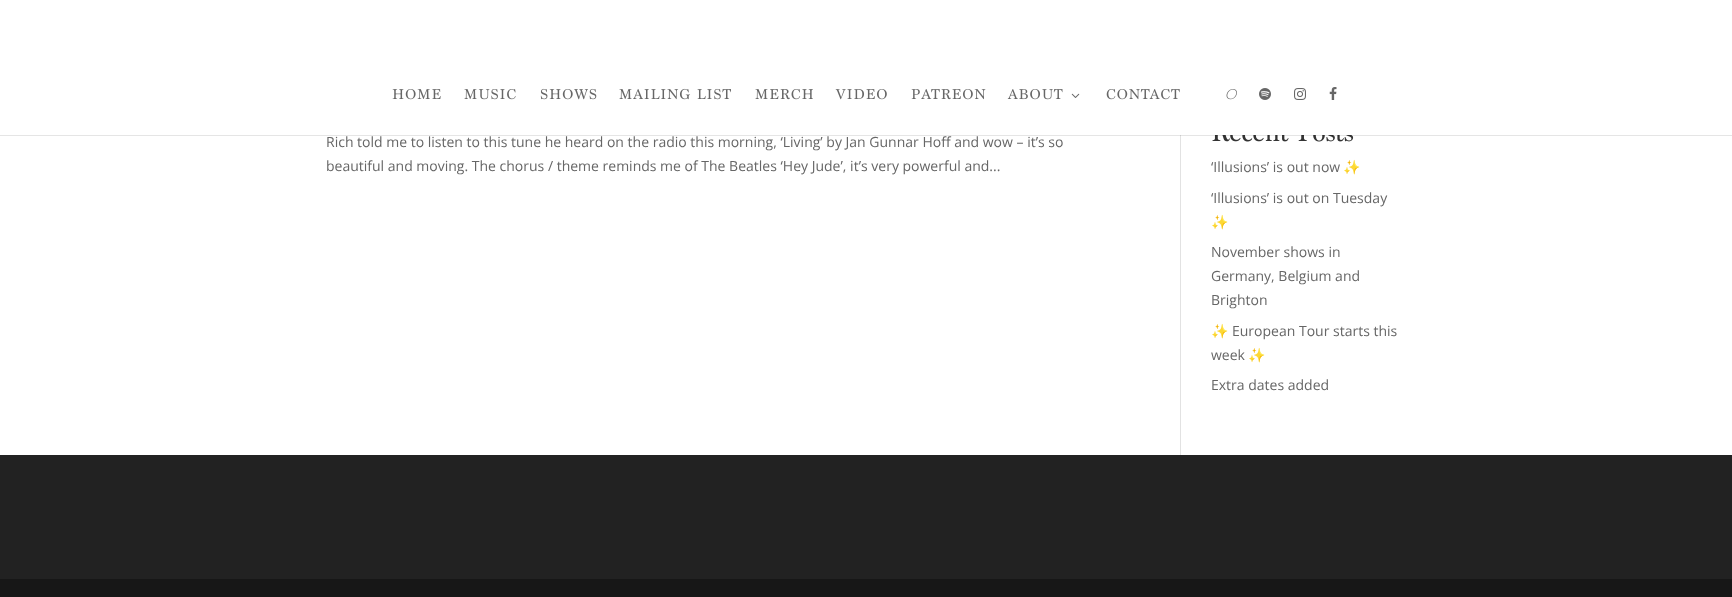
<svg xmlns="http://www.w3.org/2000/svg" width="1732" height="597">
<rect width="100%" height="100%" fill="#fff"/>
<rect x="1180" y="135" width="1" height="320" fill="#e2e2e2"/>
<image x="1212" y="135" width="142" height="7" href="media/15.png"/>
<rect y="135" width="1732" height="1" fill="#0000001a"/>
<image x="392" y="89" width="49" height="11" href="media/1.png"/>
<image x="464" y="89" width="52" height="11" href="media/2.png"/>
<image x="540" y="88" width="57" height="12" href="media/3.png"/>
<image x="619" y="88" width="112" height="12" href="media/4.png"/>
<image x="755" y="89" width="58" height="11" href="media/5.png"/>
<image x="835" y="89" width="52" height="11" href="media/6.png"/>
<image x="911" y="89" width="75" height="11" href="media/7.png"/>
<image x="1007" y="89" width="56" height="11" href="media/8.png"/>
<image x="1071" y="93" width="9" height="5" href="media/9.png"/>
<image x="1106" y="89" width="74" height="11" href="media/10.png"/>
<image x="1226" y="89" width="11" height="11" href="media/11.png"/>
<image x="1259" y="88" width="12" height="12" href="media/12.png"/>
<image x="1294" y="88" width="12" height="12" href="media/13.png"/>
<image x="1329" y="87" width="8" height="13" href="media/14.png"/>
<text x="326" y="147" style="font-family:Open Sans;font-size:14px;fill:#666">Rich told me to listen to this tune he heard on the radio this morning, ‘Living’ by Jan Gunnar Hoff and wow – it’s so</text>
<text x="326" y="171" style="font-family:Open Sans;font-size:14px;fill:#666">beautiful and moving. The chorus / theme reminds me of The Beatles ‘Hey Jude’, it’s very powerful and...</text>
<text x="1211" y="172" style="font-family:Open Sans;font-size:14px;fill:#666">‘Illusions’ is out now</text>
<text x="1343" y="172" style="font-family:Noto Color Emoji;font-size:14px;fill:#666">✨</text>
<text x="1211" y="203" style="font-family:Open Sans;font-size:14px;fill:#666">‘Illusions’ is out on Tuesday</text>
<text x="1211" y="227" style="font-family:Noto Color Emoji;font-size:14px;fill:#666">✨</text>
<text x="1211" y="257" style="font-family:Open Sans;font-size:14px;fill:#666">November shows in</text>
<text x="1211" y="281" style="font-family:Open Sans;font-size:14px;fill:#666">Germany, Belgium and</text>
<text x="1211" y="305" style="font-family:Open Sans;font-size:14px;fill:#666">Brighton</text>
<text x="1211" y="336" style="font-family:Noto Color Emoji;font-size:14px;fill:#666">✨</text>
<text x="1232" y="336" style="font-family:Open Sans;font-size:14px;fill:#666">European Tour starts this</text>
<text x="1211" y="360" style="font-family:Open Sans;font-size:14px;fill:#666">week</text>
<text x="1248" y="360" style="font-family:Noto Color Emoji;font-size:14px;fill:#666">✨</text>
<text x="1211" y="390" style="font-family:Open Sans;font-size:14px;fill:#666">Extra dates added</text>
<rect y="455" width="1732" height="124" fill="#222"/>
<rect y="579" width="1732" height="18" fill="#171717"/>
</svg>
